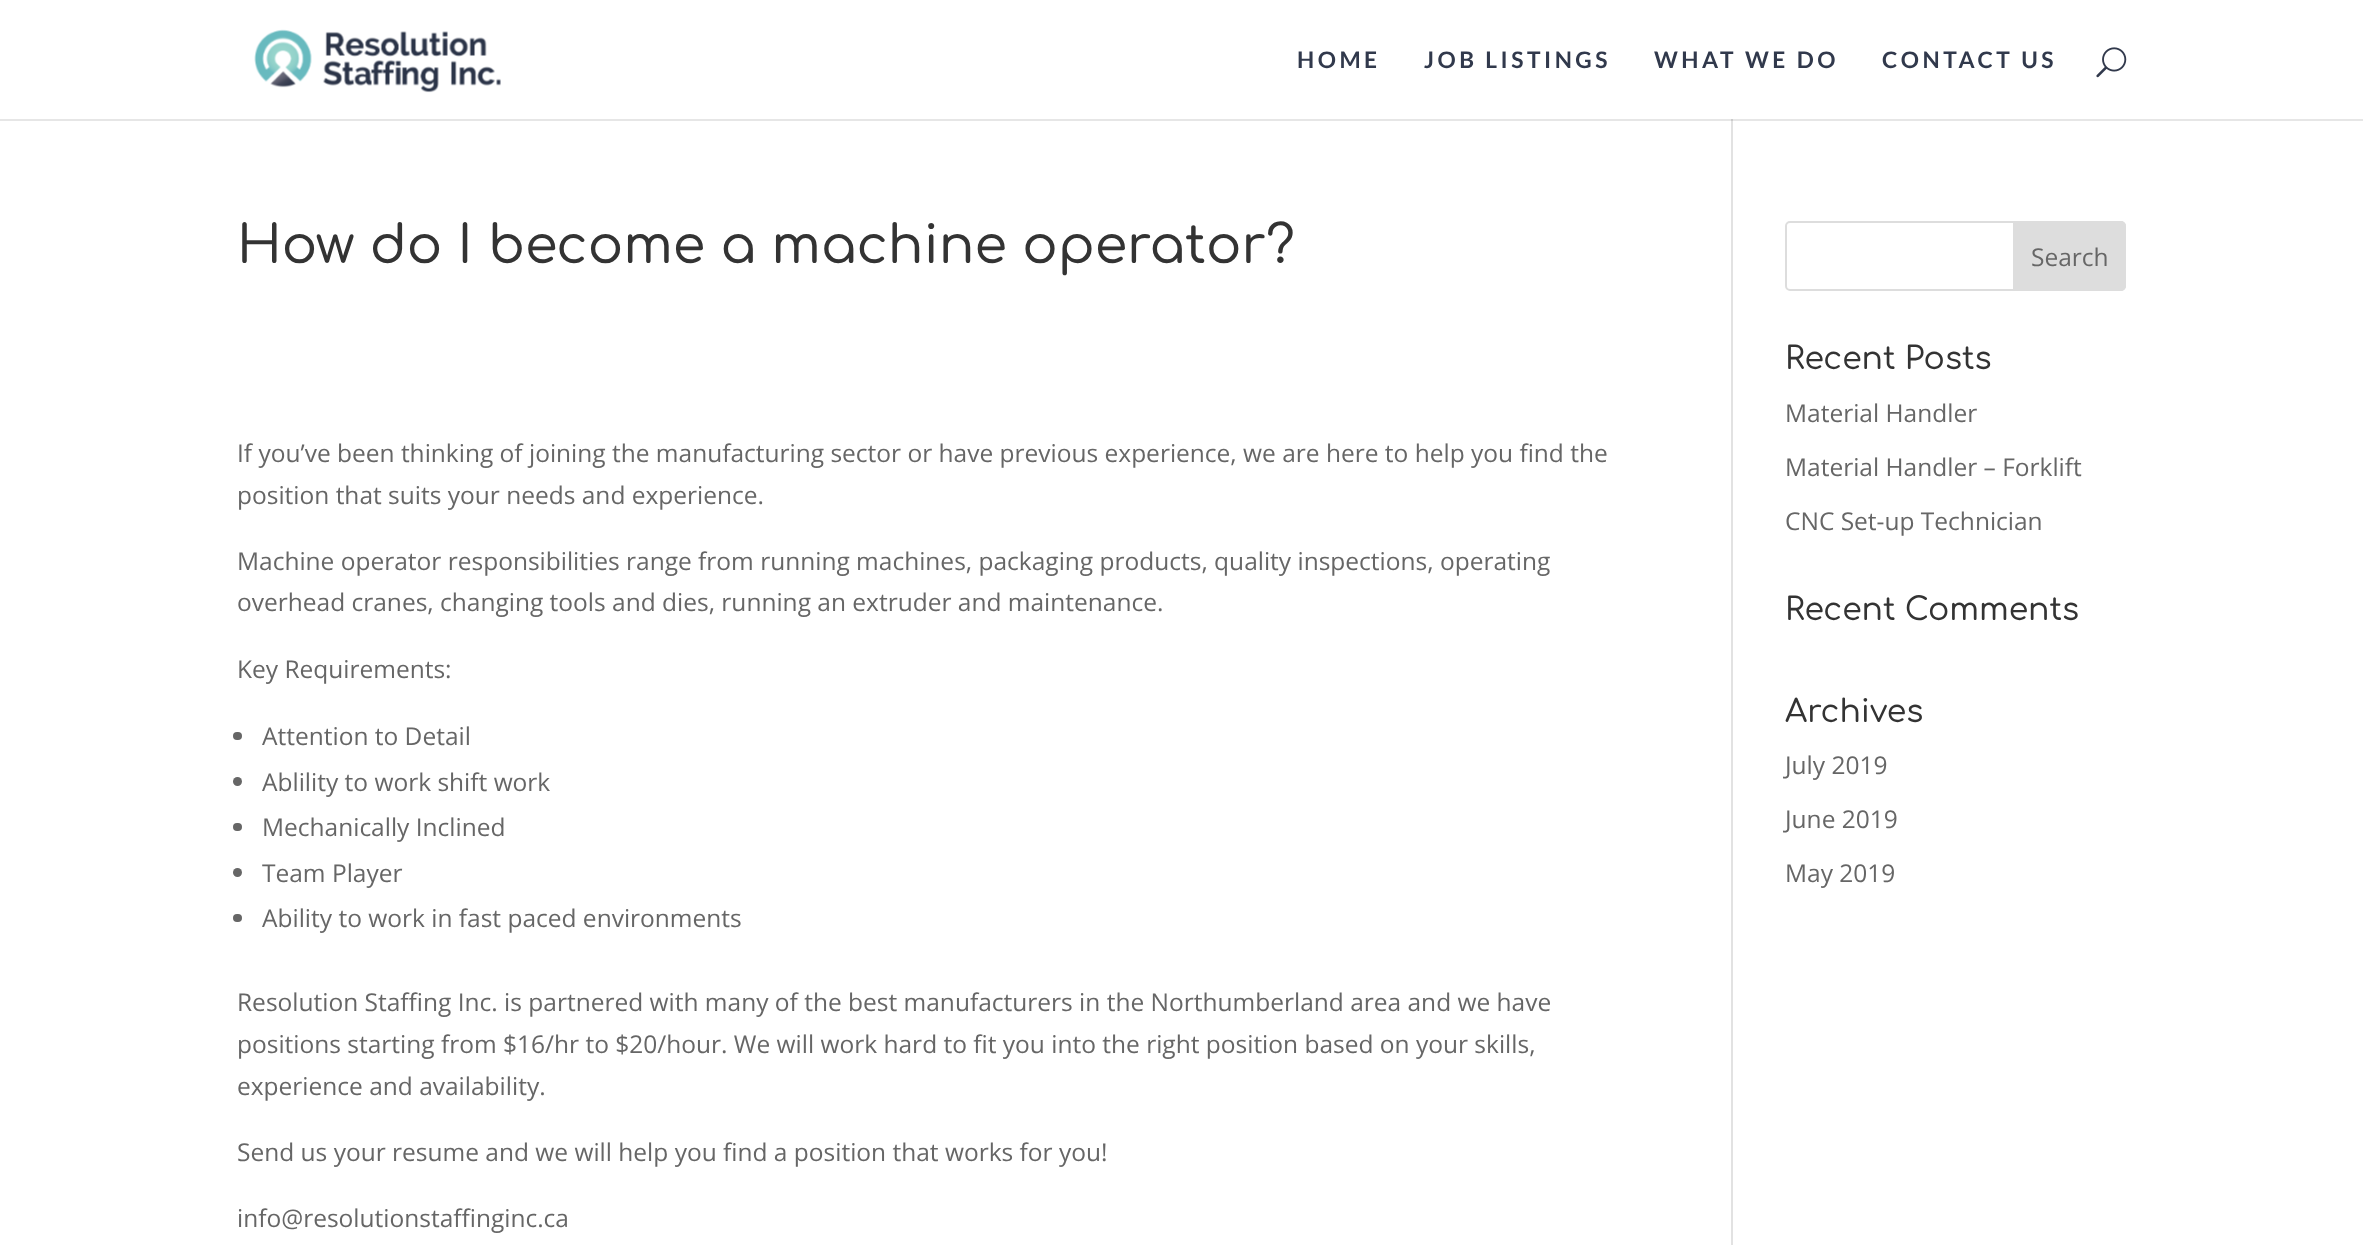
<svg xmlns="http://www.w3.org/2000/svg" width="2363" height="1245">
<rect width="100%" height="100%" fill="#fff"/>
<rect y="119" width="2363" height="2" fill="#e6e6e6"/>
<image x="254" y="29" width="247" height="64" href="media/1.png"/>
<text x="1297" y="68" style="font-family:Lato;font-size:22.75px;font-weight:bold;letter-spacing:3.5px;fill:#31394c">HOME</text>
<text x="1424" y="68" style="font-family:Lato;font-size:22.75px;font-weight:bold;letter-spacing:3.5px;fill:#31394c">JOB LISTINGS</text>
<text x="1654" y="68" style="font-family:Lato;font-size:22.75px;font-weight:bold;letter-spacing:3.5px;fill:#31394c">WHAT WE DO</text>
<text x="1882" y="68" style="font-family:Lato;font-size:22.75px;font-weight:bold;letter-spacing:3.5px;fill:#31394c">CONTACT US</text>
<image x="2096" y="47" width="31" height="31" href="media/2.png"/>
<rect x="1731" y="119" width="2" height="1126" fill="#e2e2e2"/>
<rect x="1731" y="119" width="2" height="2" fill="#cbcbcb"/>
<text x="237" y="263" style="font-family:Comfortaa;font-size:52.5px;font-weight:500;fill:#333">How do I become a machine operator?</text>
<text x="237" y="462" style="font-family:Open Sans;font-size:24.5px;fill:#666">If you’ve been thinking of joining the manufacturing sector or have previous experience, we are here to help you find the</text>
<text x="237" y="504" style="font-family:Open Sans;font-size:24.5px;fill:#666">position that suits your needs and experience.</text>
<text x="237" y="570" style="font-family:Open Sans;font-size:24.5px;fill:#666">Machine operator responsibilities range from running machines, packaging products, quality inspections, operating</text>
<text x="237" y="611" style="font-family:Open Sans;font-size:24.5px;fill:#666">overhead cranes, changing tools and dies, running an extruder and maintenance.</text>
<text x="237" y="678" style="font-family:Open Sans;font-size:24.5px;fill:#666">Key Requirements:</text>
<rect x="233" y="732" width="9" height="8" rx="4" fill="#666"/>
<text x="262" y="745" style="font-family:Open Sans;font-size:24.5px;fill:#666">Attention to Detail</text>
<circle cx="237.5" cy="781.5" r="4.5" fill="#666"/>
<text x="262" y="791" style="font-family:Open Sans;font-size:24.5px;fill:#666">Ablility to work shift work</text>
<rect x="233" y="823" width="9" height="8" rx="4" fill="#666"/>
<text x="262" y="836" style="font-family:Open Sans;font-size:24.5px;fill:#666">Mechanically Inclined</text>
<circle cx="237.5" cy="872.5" r="4.5" fill="#666"/>
<text x="262" y="882" style="font-family:Open Sans;font-size:24.5px;fill:#666">Team Player</text>
<rect x="233" y="914" width="9" height="8" rx="4" fill="#666"/>
<text x="262" y="927" style="font-family:Open Sans;font-size:24.5px;fill:#666">Ability to work in fast paced environments</text>
<text x="237" y="1011" style="font-family:Open Sans;font-size:24.5px;fill:#666">Resolution Staffing Inc. is partnered with many of the best manufacturers in the Northumberland area and we have</text>
<text x="237" y="1053" style="font-family:Open Sans;font-size:24.5px;fill:#666">positions starting from $16/hr to $20/hour. We will work hard to fit you into the right position based on your skills,</text>
<text x="237" y="1095" style="font-family:Open Sans;font-size:24.5px;fill:#666">experience and availability.</text>
<text x="237" y="1161" style="font-family:Open Sans;font-size:24.5px;fill:#666">Send us your resume and we will help you find a position that works for you!</text>
<text x="237" y="1227" style="font-family:Open Sans;font-size:24.5px;fill:#666">info@resolutionstaffinginc.ca</text>
<rect x="1786" y="222" width="339" height="68" rx="4" fill="none" stroke="#ddd" stroke-width="2"/>
<path d="M2014 222h107c2 0 4 2 4 4v60c0 2-2 4-4 4h-107z" fill="#ddd" stroke="#ddd" stroke-width="2"/>
<text x="2031" y="266" style="font-family:Open Sans;font-size:24.5px;fill:#666">Search</text>
<text x="1785" y="369" style="font-family:Comfortaa;font-size:31.5px;font-weight:500;fill:#333">Recent Posts</text>
<text x="1785" y="422" style="font-family:Open Sans;font-size:24.5px;fill:#666">Material Handler</text>
<text x="1785" y="476" style="font-family:Open Sans;font-size:24.5px;fill:#666">Material Handler – Forklift</text>
<text x="1785" y="530" style="font-family:Open Sans;font-size:24.5px;fill:#666">CNC Set-up Technician</text>
<text x="1785" y="620" style="font-family:Comfortaa;font-size:31.5px;font-weight:500;fill:#333">Recent Comments</text>
<text x="1785" y="722" style="font-family:Comfortaa;font-size:31.5px;font-weight:500;fill:#333">Archives</text>
<text x="1785" y="774" style="font-family:Open Sans;font-size:24.5px;fill:#666">July 2019</text>
<text x="1785" y="828" style="font-family:Open Sans;font-size:24.5px;fill:#666">June 2019</text>
<text x="1785" y="882" style="font-family:Open Sans;font-size:24.5px;fill:#666">May 2019</text>
</svg>
